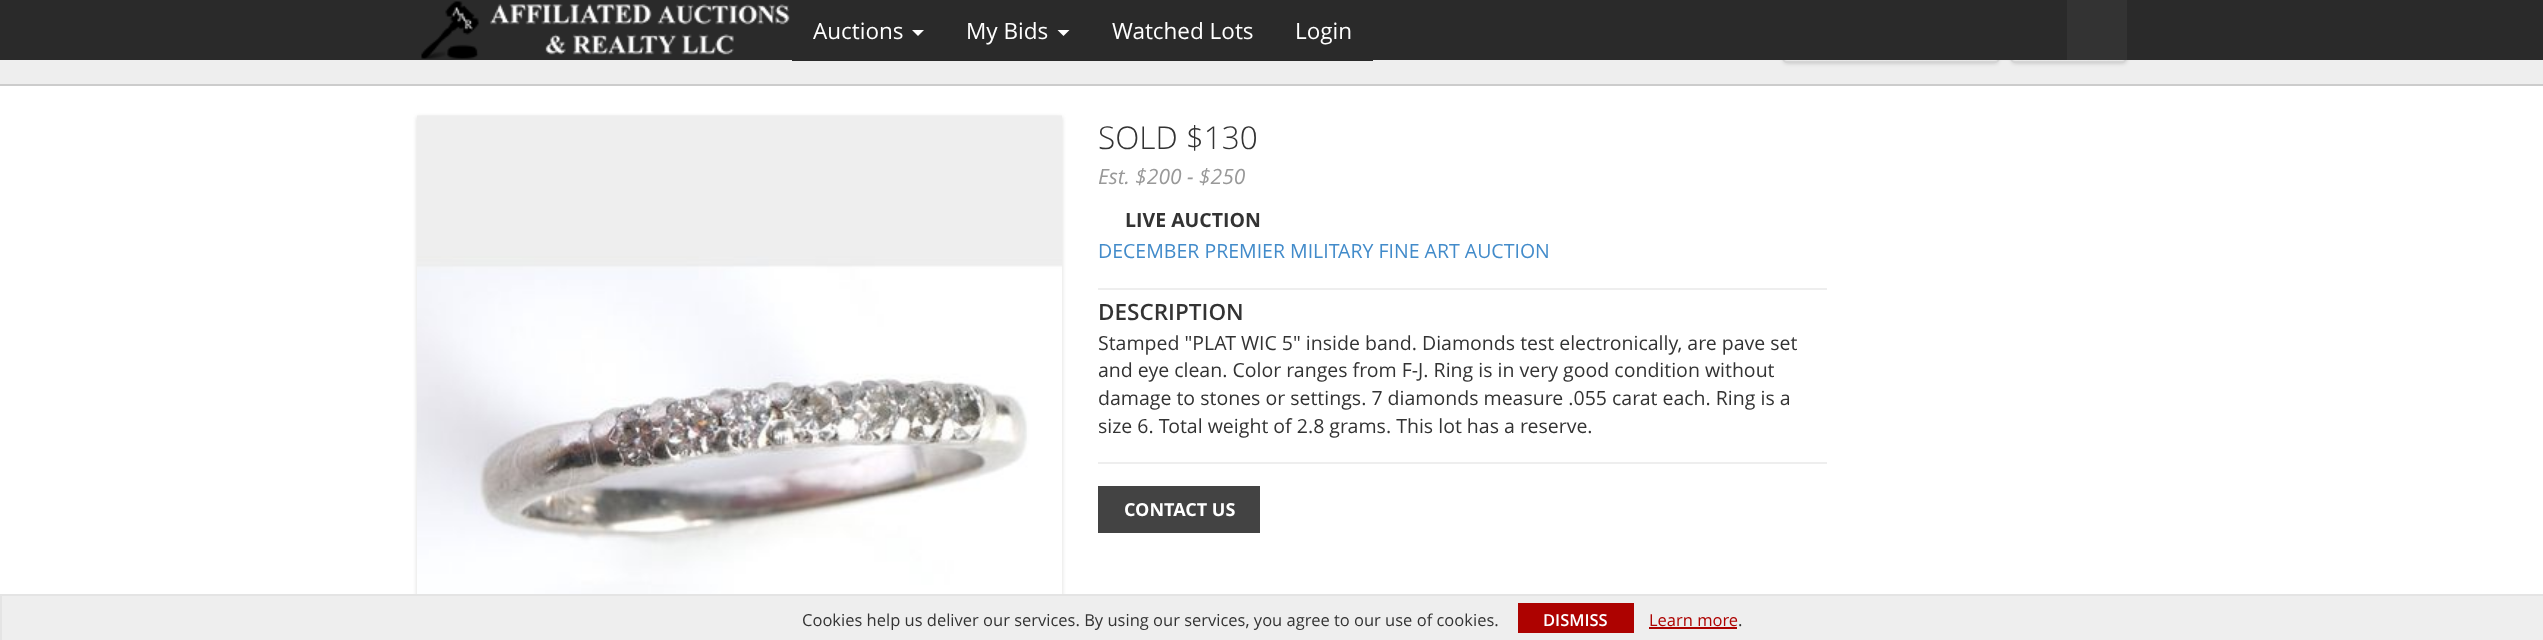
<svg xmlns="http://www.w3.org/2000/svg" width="2543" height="640">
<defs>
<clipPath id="clip1"><rect x="1782" y="17" width="218" height="46" rx="5"/></clipPath>
<linearGradient id="g1" gradientUnits="userSpaceOnUse" x1="1891" y1="18" x2="1891" y2="62"><stop offset="0" stop-color="#fff"/><stop offset="1" stop-color="#e6e6e6"/></linearGradient>
<clipPath id="clip2"><rect x="2010" y="17" width="117" height="46" rx="5"/></clipPath>
<linearGradient id="g2" gradientUnits="userSpaceOnUse" x1="2069" y1="18" x2="2069" y2="62"><stop offset="0" stop-color="#fff"/><stop offset="1" stop-color="#e6e6e6"/></linearGradient>
</defs>
<rect width="100%" height="100%" fill="#fff"/>
<rect y="60" width="2543" height="24" fill="#eee"/>
<rect x="1784" y="20" width="214" height="43" rx="3" fill="#00000033" filter="blur(2px)"/>
<g clip-path="url(#clip1)">
<rect x="1782" y="60" width="218" height="2" fill="url(#g1)"/>
</g>
<rect x="1783" y="18" width="216" height="44" rx="4" fill="none" stroke="#d4d4d4" stroke-width="2"/>
<rect x="2012" y="20" width="114" height="43" rx="3" fill="#00000033" filter="blur(2px)"/>
<g clip-path="url(#clip2)">
<rect x="2010" y="60" width="117" height="2" fill="url(#g2)"/>
</g>
<rect x="2011" y="18" width="115" height="44" rx="4" fill="none" stroke="#d4d4d4" stroke-width="2"/>
<rect width="2543" height="60" fill="#2a2a2a"/>
<image x="421" y="1" width="369" height="58" href="media/1.png"/>
<rect x="792" y="60" width="581" height="1" fill="#2a2a2a"/>
<text x="813" y="39" style="font-family:Open Sans;font-size:22.5px;fill:#fff">Auctions</text>
<path d="M912 30h12l-6 6z" fill="#fff"/>
<text x="966" y="39" style="font-family:Open Sans;font-size:22.5px;fill:#fff">My Bids</text>
<path d="M1057.5 30h12l-6 6z" fill="#fff"/>
<text x="1112" y="39" style="font-family:Open Sans;font-size:22.5px;fill:#fff">Watched Lots</text>
<text x="1295" y="39" style="font-family:Open Sans;font-size:22.5px;fill:#fff">Login</text>
<rect x="2067" width="60" height="60" fill="#333"/>
<rect y="84" width="2543" height="2" fill="#ccc"/>
<rect x="417" y="117" width="645" height="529" fill="#dad9d7" filter="blur(2px)"/>
<image x="417" y="115" width="645" height="479" href="media/2.png"/>
<text x="1098" y="149" style="font-family:Open Sans;font-size:31.5px;font-weight:300;fill:#333">SOLD $130</text>
<text x="1098" y="184" style="font-family:Open Sans;font-size:21px;font-style:italic;fill:#999">Est. $200 - $250</text>
<text x="1125" y="227" style="font-family:Open Sans;font-size:19.5px;font-weight:bold;fill:#333">LIVE AUCTION</text>
<text x="1098" y="258" style="font-family:Open Sans;font-size:19.5px;fill:#428bca">DECEMBER PREMIER MILITARY FINE ART AUCTION</text>
<rect x="1098" y="288" width="729" height="2" fill="#eee"/>
<text x="1098" y="320" style="font-family:Open Sans;font-size:22.5px;font-weight:600;fill:#333">DESCRIPTION</text>
<text x="1098" y="350" style="font-family:Open Sans;font-size:19.5px;fill:#333">Stamped "PLAT WIC 5" inside band. Diamonds test electronically, are pave set</text>
<text x="1098" y="377" style="font-family:Open Sans;font-size:19.5px;fill:#333">and eye clean. Color ranges from F-J. Ring is in very good condition without</text>
<text x="1098" y="405" style="font-family:Open Sans;font-size:19.5px;fill:#333">damage to stones or settings. 7 diamonds measure .055 carat each. Ring is a</text>
<text x="1098" y="433" style="font-family:Open Sans;font-size:19.5px;fill:#333">size 6. Total weight of 2.8 grams. This lot has a reserve.</text>
<rect x="1098" y="462" width="729" height="2" fill="#eee"/>
<rect x="1098" y="486" width="162" height="47" fill="#434343"/>
<text x="1124" y="516" style="font-family:Open Sans;font-size:18px;font-weight:bold;fill:#fff">CONTACT US</text>
<rect x="2" y="596" width="2541" height="44" fill="#eee"/>
<rect y="594" width="2543" height="2" fill="#e4e4e4"/>
<rect y="594" width="2" height="46" fill="#e4e4e4"/>
<text x="802" y="626" style="font-family:Open Sans;font-size:16.5px;fill:#333">Cookies help us deliver our services. By using our services, you agree to our use of cookies.</text>
<rect x="1518" y="603" width="116" height="30" fill="#ad0200"/>
<text x="1543" y="626" style="font-family:Open Sans;font-size:16.5px;font-weight:600;fill:#fff">DISMISS</text>
<text x="1649" y="626" style="font-family:Open Sans;font-size:16.5px;fill:#ad0200">Learn more</text>
<rect x="1649" y="627" width="88" height="2" fill="#ad0200"/>
<text x="1738" y="626" style="font-family:Open Sans;font-size:16.5px;fill:#333">.</text>
</svg>
